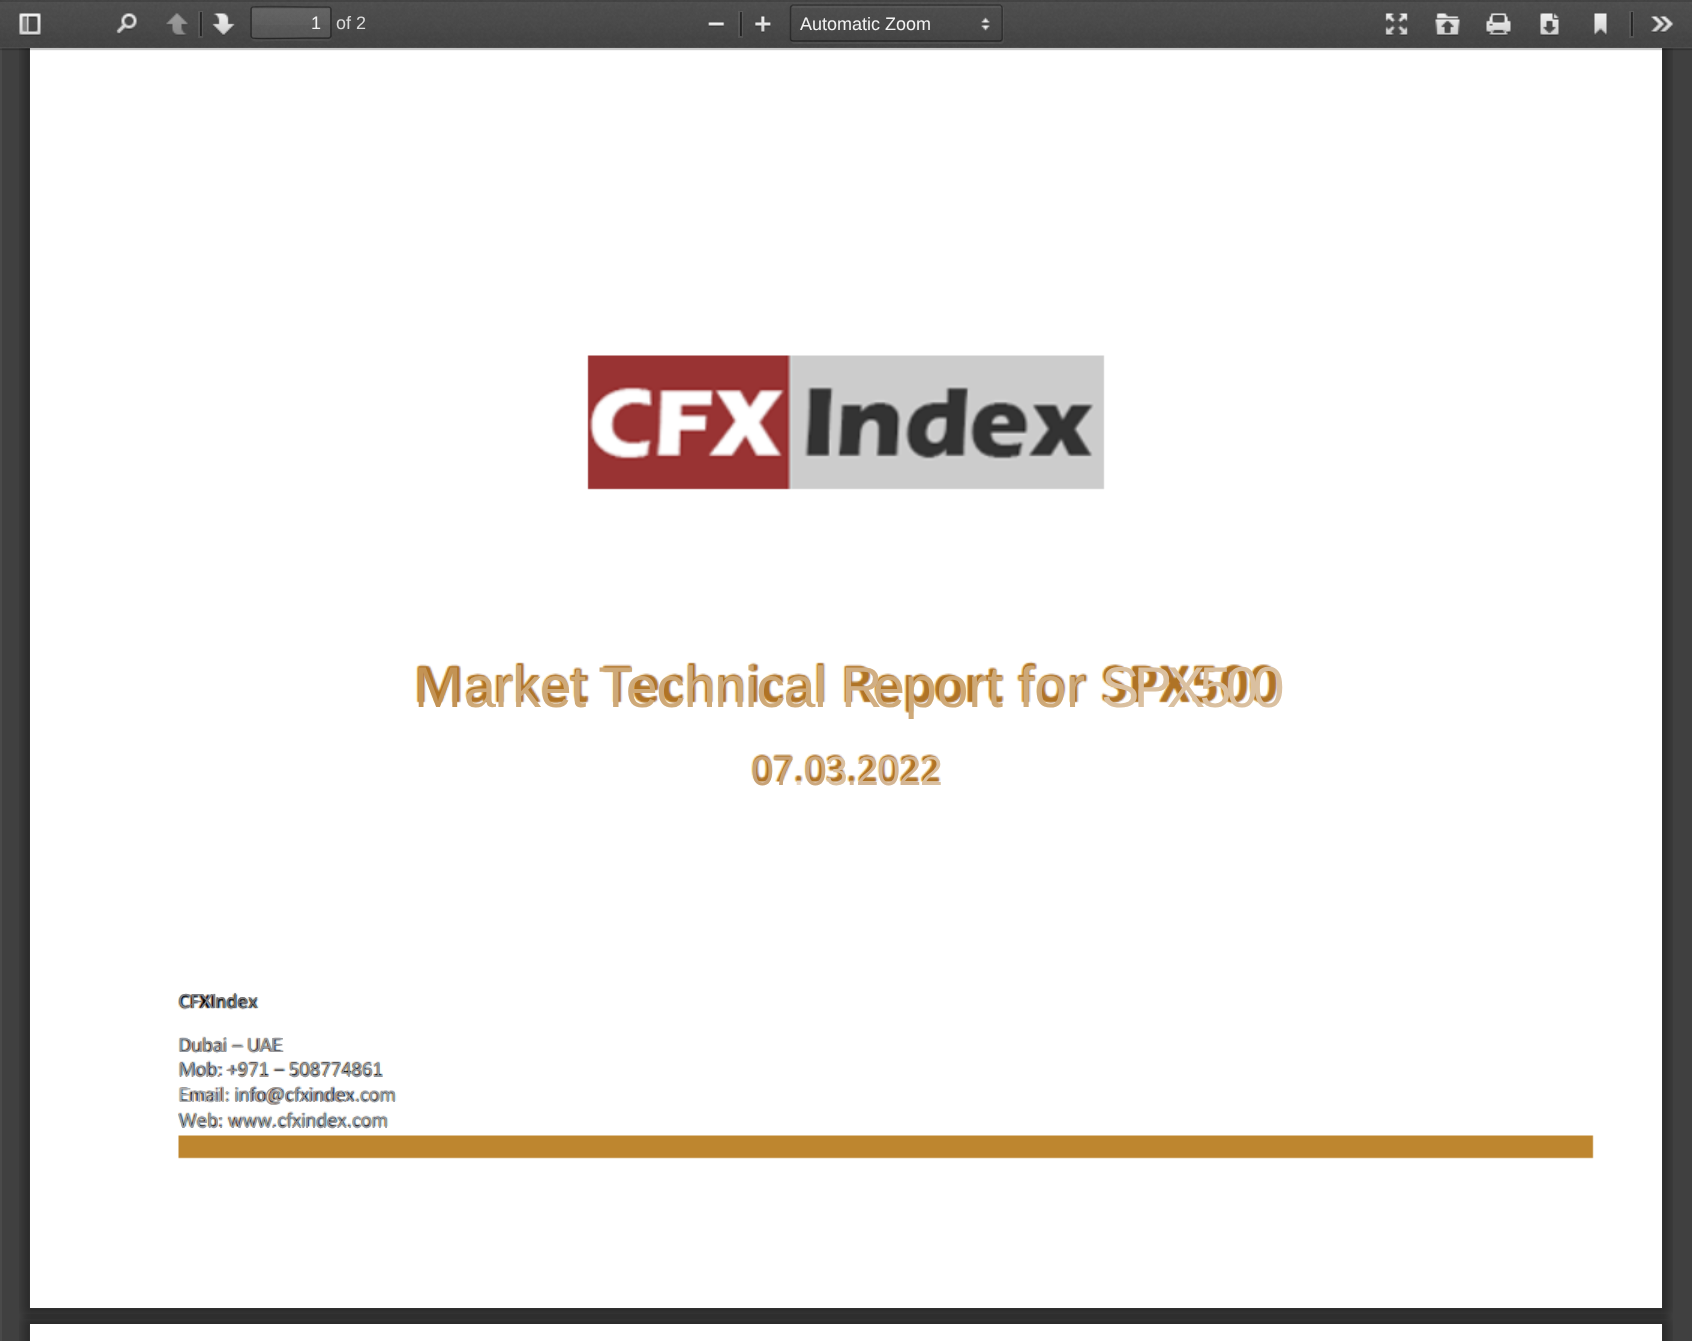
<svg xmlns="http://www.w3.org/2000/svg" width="1692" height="1341">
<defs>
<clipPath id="clip1"><rect x="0" y="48" width="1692" height="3"/></clipPath>
<linearGradient id="g1" gradientUnits="userSpaceOnUse" x1="291" y1="7.5" x2="291" y2="38"><stop offset="0" stop-color="#fff" stop-opacity="0.05"/><stop offset="1" stop-color="#fff" stop-opacity="0"/></linearGradient>
</defs>
<rect width="100%" height="100%" fill="#404040"/>
<rect y="48" width="2" height="1293" fill="#4a4a4a"/>
<image x="19" y="48" width="1654" height="1271" href="media/15.png"/>
<image x="30" y="48" width="1632" height="1260" href="media/16.png"/>
<g clip-path="url(#clip1)">
<rect y="2" width="1692" height="48" fill="#0000001a" filter="blur(1px)"/>
</g>
<rect y="48" width="1692" height="2" fill="#00000026"/>
<image x="0" y="0" width="1692" height="48" href="media/1.png"/>
<rect y="47" width="1692" height="2" fill="#ffffff0d"/>
<rect width="1692" height="2" fill="#00000026"/>
<image x="19" y="13" width="22" height="23" href="media/2.png"/>
<image x="116" y="13" width="21" height="22" href="media/3.png"/>
<image x="166" y="13" width="22" height="23" href="media/4.png"/>
<rect x="199" y="12" width="3" height="25" fill="none" stroke="#ffffff14" stroke-width="2"/>
<rect x="200" y="12" width="2" height="24" fill="#00000080"/>
<image x="212" y="13" width="23" height="23" href="media/5.png"/>
<path d="M251 38c0 6 15 3 15 3h50c17 0 16 3 16-12c0-3 1-18 0-20v27c0 2-2 3-4 3h-74c-2 0-2-1-3-1z" fill="#ffffff0d"/>
<rect x="252" y="8" width="78" height="30" fill="#ffffff17"/>
<rect x="252" y="8" width="78" height="17" fill="url(#g1)"/>
<path d="M254 9h74l2 1c0-1 0-2-2-2h-75c-1 0-1 1-1 2z" fill="#0000000d"/>
<path d="M252 7.5l.5-.5c1.5-1 57 0 63.5 0h12.5l1.5 .5" fill="none" stroke="#00000052" stroke-width="1.5"/>
<path d="M330 7.5c.5 .5 1 1 1 1.5v27c0 .5-.5 1-1 1.5" fill="none" stroke="#00000061" stroke-width="1.5"/>
<path d="M330 37.5l-1.5 .5h-12.5c-6.5 0-62 1-63.5 0l-.5-.5" fill="none" stroke="#0000006b" stroke-width="1.5"/>
<path d="M252 37.5c-.5-.5-1-1-1-1.5v-27c0-.5 .5-1 1-1.5" fill="none" stroke="#00000061" stroke-width="1.5"/>
<text x="311" y="29" style="font-family:Liberation Sans;font-size:18px;fill:#f2f2f2">1</text>
<text x="336" y="29" style="font-family:Liberation Sans;font-size:18px;fill:#d9d9d9">of 2</text>
<image x="708" y="22" width="17" height="5" href="media/6.png"/>
<rect x="739" y="12" width="3" height="25" fill="none" stroke="#ffffff14" stroke-width="2"/>
<rect x="740" y="12" width="2" height="24" fill="#00000080"/>
<image x="755" y="16" width="16" height="17" href="media/7.png"/>
<path d="M791 41c0 2 2 3 3 3h207c2 0 3-1 3-3v-32c0-1-1-2-1-3v33c0 2-2 3-3 3h-207z" fill="#ffffff0d"/>
<image x="981" y="17" width="9" height="14" href="media/8.png"/>
<path d="M793 8h207c1 0 1 0 1 1v32l1-1v-32c0-1-1-2-2-2h-207l-1 1v1z" fill="#ffffff0d"/>
<path d="M791 6l2-1h207l1.5 1" fill="none" stroke="#00000052" stroke-width="1.5"/>
<path d="M1001.5 6l.5 1.5v31.5l-.5 1.5" fill="none" stroke="#00000061" stroke-width="1.5"/>
<path d="M1001.5 40.5l-1.5 .5h-207l-2-.5" fill="none" stroke="#0000006b" stroke-width="1.5"/>
<path d="M791 40.5l-.5-1.5v-31.5l.5-1.5" fill="none" stroke="#00000061" stroke-width="1.5"/>
<text x="800" y="30" style="font-family:Liberation Sans;font-size:18px;fill:#f2f2f2">Automatic Zoom</text>
<image x="1385" y="13" width="23" height="23" href="media/9.png"/>
<image x="1435" y="13" width="25" height="23" href="media/10.png"/>
<image x="1486" y="13" width="25" height="23" href="media/11.png"/>
<image x="1540" y="13" width="19" height="23" href="media/12.png"/>
<image x="1594" y="13" width="13" height="23" href="media/13.png"/>
<rect x="1630" y="12" width="3" height="25" fill="none" stroke="#ffffff14" stroke-width="2"/>
<rect x="1631" y="12" width="2" height="24" fill="#00000080"/>
<image x="1651" y="16" width="23" height="17" href="media/14.png"/>
<text x="414" y="707" style="font-family:Liberation Sans;font-size:57.5px;fill:#c39355">M</text>
<text x="464" y="707" style="font-family:Liberation Sans;font-size:57.5px;letter-spacing:-1.4px;fill:#cea978">arket Technical</text>
<text x="841" y="707" style="font-family:Liberation Sans;font-size:57.5px;fill:#d1ae82">R</text>
<text x="873" y="707" style="font-family:Liberation Sans;font-size:57.5px;letter-spacing:-0.25px;fill:#cea978">eport for</text>
<text x="1101" y="707" style="font-family:Liberation Sans;font-size:57.5px;letter-spacing:-5.5px;fill:#dac0a0">SPX500</text>
<text x="751" y="785" style="font-family:Liberation Sans;font-size:41px;letter-spacing:-2px;fill:#c7a277">07</text>
<text x="793" y="785" style="font-family:Liberation Sans;font-size:41px;fill:#e9d7c2">.</text>
<text x="804" y="785" style="font-family:Liberation Sans;font-size:41px;fill:#cca87e">0</text>
<text x="825" y="785" style="font-family:Liberation Sans;font-size:41px;fill:#dac0a0">3</text>
<text x="846" y="785" style="font-family:Liberation Sans;font-size:41px;letter-spacing:-1.5px;fill:#d3b594">.202</text>
<text x="920" y="785" style="font-family:Liberation Sans;font-size:41px;fill:#dac0a0">2</text>
<text x="178" y="1008" style="font-family:Liberation Sans;font-size:20.5px;letter-spacing:-2.5px;fill:#7e8086">CFXI</text>
<text x="215" y="1008" style="font-family:Liberation Sans;font-size:20.5px;letter-spacing:-0.5px;fill:#737071">ndex</text>
<text x="178" y="1052" style="font-family:Liberation Sans;font-size:20.5px;letter-spacing:-1px;fill:#90969f">Dubai</text>
<text x="232" y="1052" style="font-family:Liberation Sans;font-size:20.5px;fill:#abadaf">–</text>
<text x="247" y="1052" style="font-family:Liberation Sans;font-size:20.5px;letter-spacing:-2.5px;fill:#99999d">UAE</text>
<text x="178" y="1077" style="font-family:Liberation Sans;font-size:20.5px;letter-spacing:-0.75px;fill:#a09690">Mob: +971</text>
<text x="289" y="1077" style="font-family:Liberation Sans;font-size:20.5px;letter-spacing:-1px;fill:#90969f">508774861</text>
<text x="178" y="1102" style="font-family:Liberation Sans;font-size:20.5px;letter-spacing:-1px;fill:#abadaf">Email:</text>
<text x="234" y="1102" style="font-family:Liberation Sans;font-size:20.5px;letter-spacing:-0.75px;fill:#a09690">info@cfxindex</text>
<text x="355" y="1102" style="font-family:Liberation Sans;font-size:20.5px;letter-spacing:-1px;fill:#969da6">.com</text>
<text x="178" y="1128" style="font-family:Liberation Sans;font-size:20.5px;letter-spacing:-0.5px;fill:#969da6">Web: www.</text>
<text x="277" y="1128" style="font-family:Liberation Sans;font-size:20.5px;letter-spacing:-0.75px;fill:#939499">cfxindex</text>
<text x="347" y="1128" style="font-family:Liberation Sans;font-size:20.5px;letter-spacing:-1px;fill:#969da6">.com</text>
<image x="19" y="1314" width="1654" height="27" href="media/17.png"/>
<rect x="30" y="1324" width="1632" height="17" fill="#fff"/>
</svg>
